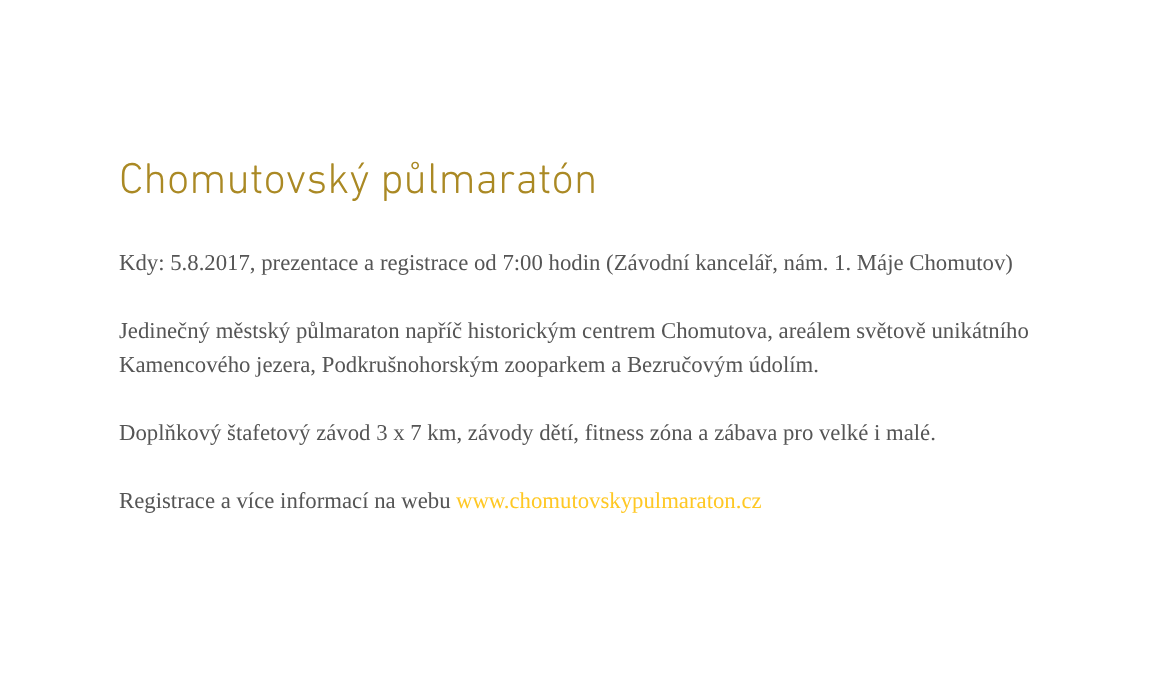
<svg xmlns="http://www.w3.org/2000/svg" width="1166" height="687">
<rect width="100%" height="100%" fill="#fff"/>
<text x="119" y="193" style="font-family:'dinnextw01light';font-size:43.75px;font-weight:300;fill:#aa8924">Chomutovský půlmaratón</text>
<text x="119" y="270" style="font-family:Liberation Serif;font-size:22.75px;fill:#555">Kdy: 5.8.2017, prezentace a registrace od 7:00 hodin (Závodní kancelář, nám. 1. Máje Chomutov)</text>
<text x="119" y="338" style="font-family:Liberation Serif;font-size:22.75px;fill:#555">Jedinečný městský půlmaraton napříč historickým centrem Chomutova, areálem světově unikátního</text>
<text x="119" y="372" style="font-family:Liberation Serif;font-size:22.75px;fill:#555">Kamencového jezera, Podkrušnohorským zooparkem a Bezručovým údolím.</text>
<text x="119" y="440" style="font-family:Liberation Serif;font-size:22.75px;fill:#555">Doplňkový štafetový závod 3 x 7 km, závody dětí, fitness zóna a zábava pro velké i malé.</text>
<text x="119" y="508" style="font-family:Liberation Serif;font-size:22.75px;fill:#555">Registrace a více informací na webu</text>
<text x="456" y="508" style="font-family:Liberation Serif;font-size:22.75px;fill:#ffc824">www.chomutovskypulmaraton.cz</text>
</svg>
